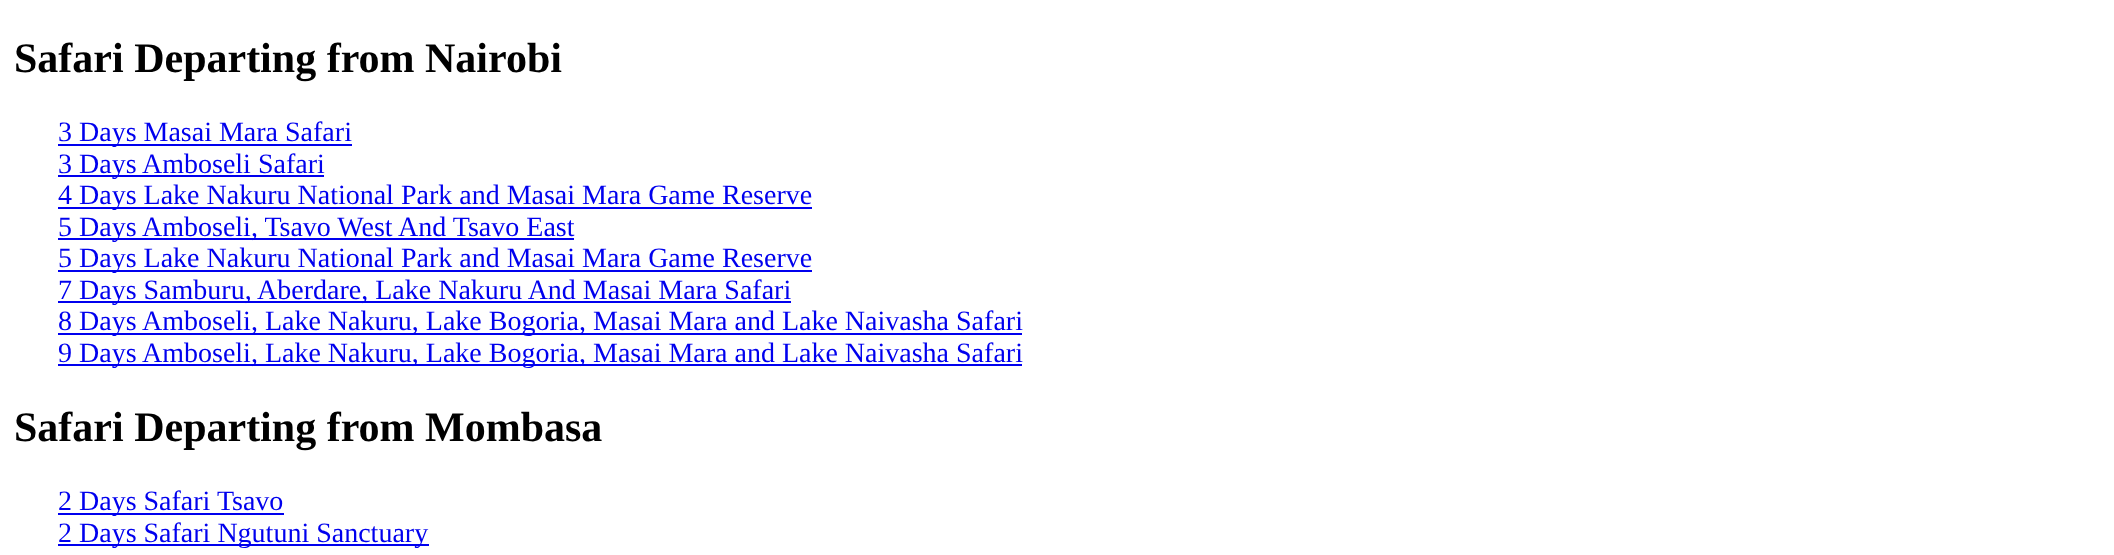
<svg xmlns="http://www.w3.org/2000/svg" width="2114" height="555">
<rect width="100%" height="100%" fill="#fff"/>
<text x="14" y="72" style="font-family:Liberation Serif;font-size:42px;font-weight:bold;fill:#000">Safari Departing from Nairobi</text>
<rect x="58" y="144" width="294" height="2" fill="#00e"/>
<text x="58" y="141" style="font-family:Liberation Serif;font-size:28px;fill:#00e">3 Days Masai Mara Safari</text>
<rect x="58" y="175" width="266" height="2" fill="#00e"/>
<text x="58" y="173" style="font-family:Liberation Serif;font-size:28px;fill:#00e">3 Days Amboseli Safari</text>
<rect x="58" y="207" width="754" height="2" fill="#00e"/>
<text x="58" y="204" style="font-family:Liberation Serif;font-size:28px;fill:#00e">4 Days Lake Nakuru National Park and Masai Mara Game Reserve</text>
<rect x="58" y="238" width="516" height="2" fill="#00e"/>
<text x="58" y="236" style="font-family:Liberation Serif;font-size:28px;fill:#00e">5 Days Amboseli, Tsavo West And Tsavo East</text>
<rect x="58" y="270" width="754" height="2" fill="#00e"/>
<text x="58" y="267" style="font-family:Liberation Serif;font-size:28px;fill:#00e">5 Days Lake Nakuru National Park and Masai Mara Game Reserve</text>
<rect x="58" y="301" width="733" height="2" fill="#00e"/>
<text x="58" y="299" style="font-family:Liberation Serif;font-size:28px;fill:#00e">7 Days Samburu, Aberdare, Lake Nakuru And Masai Mara Safari</text>
<rect x="58" y="333" width="964" height="2" fill="#00e"/>
<text x="58" y="330" style="font-family:Liberation Serif;font-size:28px;fill:#00e">8 Days Amboseli, Lake Nakuru, Lake Bogoria, Masai Mara and Lake Naivasha Safari</text>
<rect x="58" y="364" width="964" height="2" fill="#00e"/>
<text x="58" y="362" style="font-family:Liberation Serif;font-size:28px;fill:#00e">9 Days Amboseli, Lake Nakuru, Lake Bogoria, Masai Mara and Lake Naivasha Safari</text>
<text x="14" y="441" style="font-family:Liberation Serif;font-size:42px;font-weight:bold;fill:#000">Safari Departing from Mombasa</text>
<rect x="58" y="513" width="226" height="2" fill="#00e"/>
<text x="58" y="510" style="font-family:Liberation Serif;font-size:28px;fill:#00e">2 Days Safari Tsavo</text>
<rect x="58" y="544" width="371" height="2" fill="#00e"/>
<text x="58" y="542" style="font-family:Liberation Serif;font-size:28px;fill:#00e">2 Days Safari Ngutuni Sanctuary</text>
</svg>
